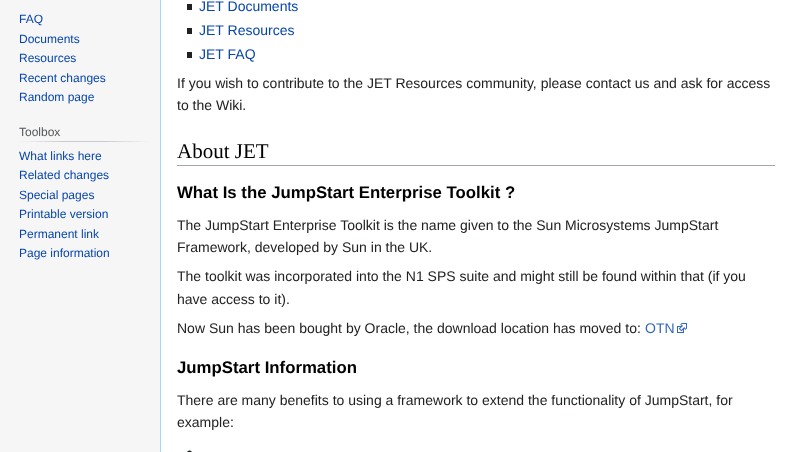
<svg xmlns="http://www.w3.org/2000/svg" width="791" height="452">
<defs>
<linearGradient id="g1" gradientUnits="userSpaceOnUse" x1="19" y1="142" x2="150" y2="142"><stop offset="0" stop-color="#f6f6f6"/><stop offset="0.33" stop-color="#c8ccd1"/><stop offset="0.66" stop-color="#c8ccd1"/><stop offset="1" stop-color="#f6f6f6"/></linearGradient>
</defs>
<rect width="100%" height="100%" fill="#f6f6f6"/>
<text x="19" y="23" style="font-family:Liberation Sans;font-size:12px;fill:#0645ad">FAQ</text>
<text x="19" y="43" style="font-family:Liberation Sans;font-size:12px;fill:#0645ad">Documents</text>
<text x="19" y="62" style="font-family:Liberation Sans;font-size:12px;fill:#0645ad">Resources</text>
<text x="19" y="82" style="font-family:Liberation Sans;font-size:12px;fill:#0645ad">Recent changes</text>
<text x="19" y="101" style="font-family:Liberation Sans;font-size:12px;fill:#0645ad">Random page</text>
<rect x="19" y="141" width="131" height="1" fill="url(#g1)"/>
<text x="19" y="136" style="font-family:Liberation Sans;font-size:12px;fill:#54595d">Toolbox</text>
<text x="19" y="160" style="font-family:Liberation Sans;font-size:12px;fill:#0645ad">What links here</text>
<text x="19" y="179" style="font-family:Liberation Sans;font-size:12px;fill:#0645ad">Related changes</text>
<text x="19" y="199" style="font-family:Liberation Sans;font-size:12px;fill:#0645ad">Special pages</text>
<text x="19" y="218" style="font-family:Liberation Sans;font-size:12px;fill:#0645ad">Printable version</text>
<text x="19" y="238" style="font-family:Liberation Sans;font-size:12px;fill:#0645ad">Permanent link</text>
<text x="19" y="257" style="font-family:Liberation Sans;font-size:12px;fill:#0645ad">Page information</text>
<rect x="161" width="630" height="452" fill="#fff"/>
<rect x="160" width="1" height="452" fill="#a7d7f9"/>
<rect x="187" y="4" width="5" height="6" fill="#202122"/>
<text x="199" y="11" style="font-family:Liberation Sans;font-size:14px;fill:#0645ad">JET Documents</text>
<rect x="187" y="28" width="5" height="6" fill="#202122"/>
<text x="199" y="35" style="font-family:Liberation Sans;font-size:14px;fill:#0645ad">JET Resources</text>
<rect x="187" y="52" width="5" height="6" fill="#202122"/>
<text x="199" y="59" style="font-family:Liberation Sans;font-size:14px;fill:#0645ad">JET FAQ</text>
<text x="177" y="88" style="font-family:Liberation Sans;font-size:14px;fill:#202122">If you wish to contribute to the JET Resources community, please contact us and ask for access</text>
<text x="177" y="110" style="font-family:Liberation Sans;font-size:14px;fill:#202122">to the Wiki.</text>
<rect x="177" y="165" width="598" height="1" fill="#a2a9b1"/>
<text x="177" y="158" style="font-family:Liberation Serif;font-size:21px;fill:#000">About JET</text>
<text x="177" y="198" style="font-family:Liberation Sans;font-size:16.8px;font-weight:bold;fill:#000">What Is the JumpStart Enterprise Toolkit ?</text>
<text x="177" y="230" style="font-family:Liberation Sans;font-size:14px;fill:#202122">The JumpStart Enterprise Toolkit is the name given to the Sun Microsystems JumpStart</text>
<text x="177" y="252" style="font-family:Liberation Sans;font-size:14px;fill:#202122">Framework, developed by Sun in the UK.</text>
<text x="177" y="281" style="font-family:Liberation Sans;font-size:14px;fill:#202122">The toolkit was incorporated into the N1 SPS suite and might still be found within that (if you</text>
<text x="177" y="304" style="font-family:Liberation Sans;font-size:14px;fill:#202122">have access to it).</text>
<text x="177" y="333" style="font-family:Liberation Sans;font-size:14px;fill:#202122">Now Sun has been bought by Oracle, the download location has moved to:</text>
<text x="645" y="333" style="font-family:Liberation Sans;font-size:14px;fill:#36b">OTN</text>
<image x="677" y="323" width="10" height="10" href="media/1.png"/>
<text x="177" y="373" style="font-family:Liberation Sans;font-size:16.8px;font-weight:bold;fill:#000">JumpStart Information</text>
<text x="177" y="405" style="font-family:Liberation Sans;font-size:14px;fill:#202122">There are many benefits to using a framework to extend the functionality of JumpStart, for</text>
<text x="177" y="427" style="font-family:Liberation Sans;font-size:14px;fill:#202122">example:</text>
<image x="187" y="450" width="5" height="2" href="media/2.png"/>
</svg>
